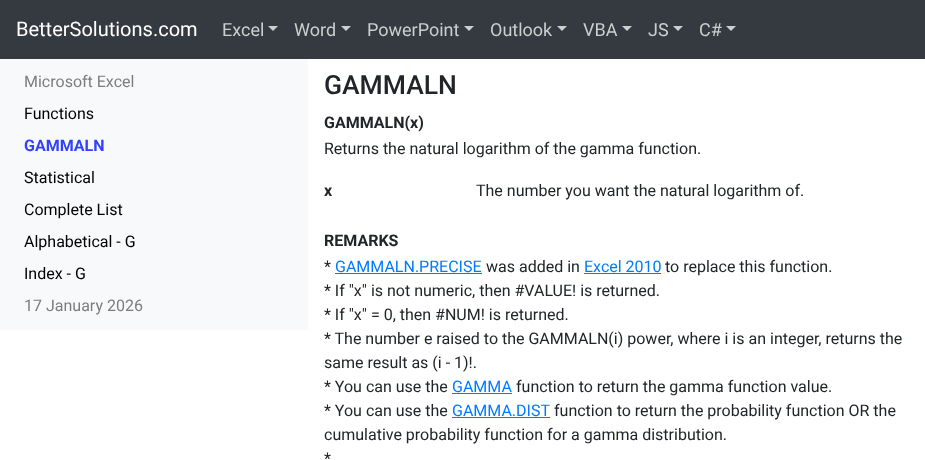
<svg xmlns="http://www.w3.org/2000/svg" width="925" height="460">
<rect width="100%" height="100%" fill="#fff"/>
<rect width="925" height="59" fill="#343a40"/>
<text x="16" y="36" style="font-family:Roboto;font-size:20px;fill:#fff">BetterSolutions.com</text>
<text x="222" y="36" style="font-family:Roboto;font-size:18px;fill:#cccecf">Excel</text>
<path d="M268 26h10l-5 5z" fill="#cccecf"/>
<text x="294" y="36" style="font-family:Roboto;font-size:18px;fill:#cccecf">Word</text>
<path d="M341 26h10l-5 5z" fill="#cccecf"/>
<text x="367" y="36" style="font-family:Roboto;font-size:18px;fill:#cccecf">PowerPoint</text>
<path d="M464 26h10l-5 5z" fill="#cccecf"/>
<text x="490" y="36" style="font-family:Roboto;font-size:18px;fill:#cccecf">Outlook</text>
<path d="M557 26h10l-5 5z" fill="#cccecf"/>
<text x="583" y="36" style="font-family:Roboto;font-size:18px;fill:#cccecf">VBA</text>
<path d="M622 26h10l-5 5z" fill="#cccecf"/>
<text x="648" y="36" style="font-family:Roboto;font-size:18px;fill:#cccecf">JS</text>
<path d="M673 26h10l-5 5z" fill="#cccecf"/>
<text x="699" y="36" style="font-family:Roboto;font-size:18px;fill:#cccecf">C#</text>
<path d="M726 26h10l-5 5z" fill="#cccecf"/>
<rect y="59" width="308" height="271" fill="#f8f9fa"/>
<text x="24" y="87" style="font-family:Roboto;font-size:16px;fill:#7c7d7d">Microsoft Excel</text>
<text x="24" y="119" style="font-family:Roboto;font-size:16px;fill:#000">Functions</text>
<text x="24" y="151" style="font-family:Roboto;font-size:16px;font-weight:bold;fill:#3340ff">GAMMALN</text>
<text x="24" y="183" style="font-family:Roboto;font-size:16px;fill:#000">Statistical</text>
<text x="24" y="215" style="font-family:Roboto;font-size:16px;fill:#000">Complete List</text>
<text x="24" y="247" style="font-family:Roboto;font-size:16px;fill:#000">Alphabetical - G</text>
<text x="24" y="279" style="font-family:Roboto;font-size:16px;fill:#000">Index - G</text>
<text x="24" y="311" style="font-family:Roboto;font-size:16px;fill:#7c7d7d">17 January 2026</text>
<text x="324" y="94" style="font-family:Roboto;font-size:26.5px;font-weight:500;fill:#212529">GAMMALN</text>
<text x="324" y="128" style="font-family:Roboto;font-size:16px;font-weight:bold;fill:#212529">GAMMALN(x)</text>
<text x="324" y="154" style="font-family:Roboto;font-size:16px;fill:#212529">Returns the natural logarithm of the gamma function.</text>
<text x="324" y="196" style="font-family:Roboto;font-size:16px;font-weight:bold;fill:#212529">x</text>
<text x="476" y="196" style="font-family:Roboto;font-size:16px;fill:#212529">The number you want the natural logarithm of.</text>
<text x="324" y="246" style="font-family:Roboto;font-size:16px;font-weight:bold;fill:#212529">REMARKS</text>
<text x="324" y="272" style="font-family:Roboto;font-size:16px;fill:#212529">*</text>
<text x="335" y="272" style="font-family:Roboto;font-size:16px;fill:#007bff">GAMMALN.PRECISE</text>
<rect x="335" y="273" width="147" height="1" fill="#007bff"/>
<text x="486" y="272" style="font-family:Roboto;font-size:16px;fill:#212529">was added in</text>
<text x="584" y="272" style="font-family:Roboto;font-size:16px;fill:#007bff">Excel 2010</text>
<rect x="584" y="273" width="77" height="1" fill="#007bff"/>
<text x="665" y="272" style="font-family:Roboto;font-size:16px;fill:#212529">to replace this function.</text>
<text x="324" y="296" style="font-family:Roboto;font-size:16px;fill:#212529">* If "x" is not numeric, then #VALUE! is returned.</text>
<text x="324" y="320" style="font-family:Roboto;font-size:16px;fill:#212529">* If "x" = 0, then #NUM! is returned.</text>
<text x="324" y="344" style="font-family:Roboto;font-size:16px;fill:#212529">* The number e raised to the GAMMALN(i) power, where i is an integer, returns the</text>
<text x="324" y="368" style="font-family:Roboto;font-size:16px;fill:#212529">same result as (i - 1)!.</text>
<text x="324" y="392" style="font-family:Roboto;font-size:16px;fill:#212529">* You can use the</text>
<text x="452" y="392" style="font-family:Roboto;font-size:16px;fill:#007bff">GAMMA</text>
<rect x="452" y="393" width="60" height="1" fill="#007bff"/>
<text x="516" y="392" style="font-family:Roboto;font-size:16px;fill:#212529">function to return the gamma function value.</text>
<text x="324" y="416" style="font-family:Roboto;font-size:16px;fill:#212529">* You can use the</text>
<text x="452" y="416" style="font-family:Roboto;font-size:16px;fill:#007bff">GAMMA.DIST</text>
<rect x="452" y="417" width="98" height="1" fill="#007bff"/>
<text x="554" y="416" style="font-family:Roboto;font-size:16px;fill:#212529">function to return the probability function OR the</text>
<text x="324" y="440" style="font-family:Roboto;font-size:16px;fill:#212529">cumulative probability function for a gamma distribution.</text>
<text x="324" y="464" style="font-family:Roboto;font-size:16px;fill:#212529">*</text>
</svg>
